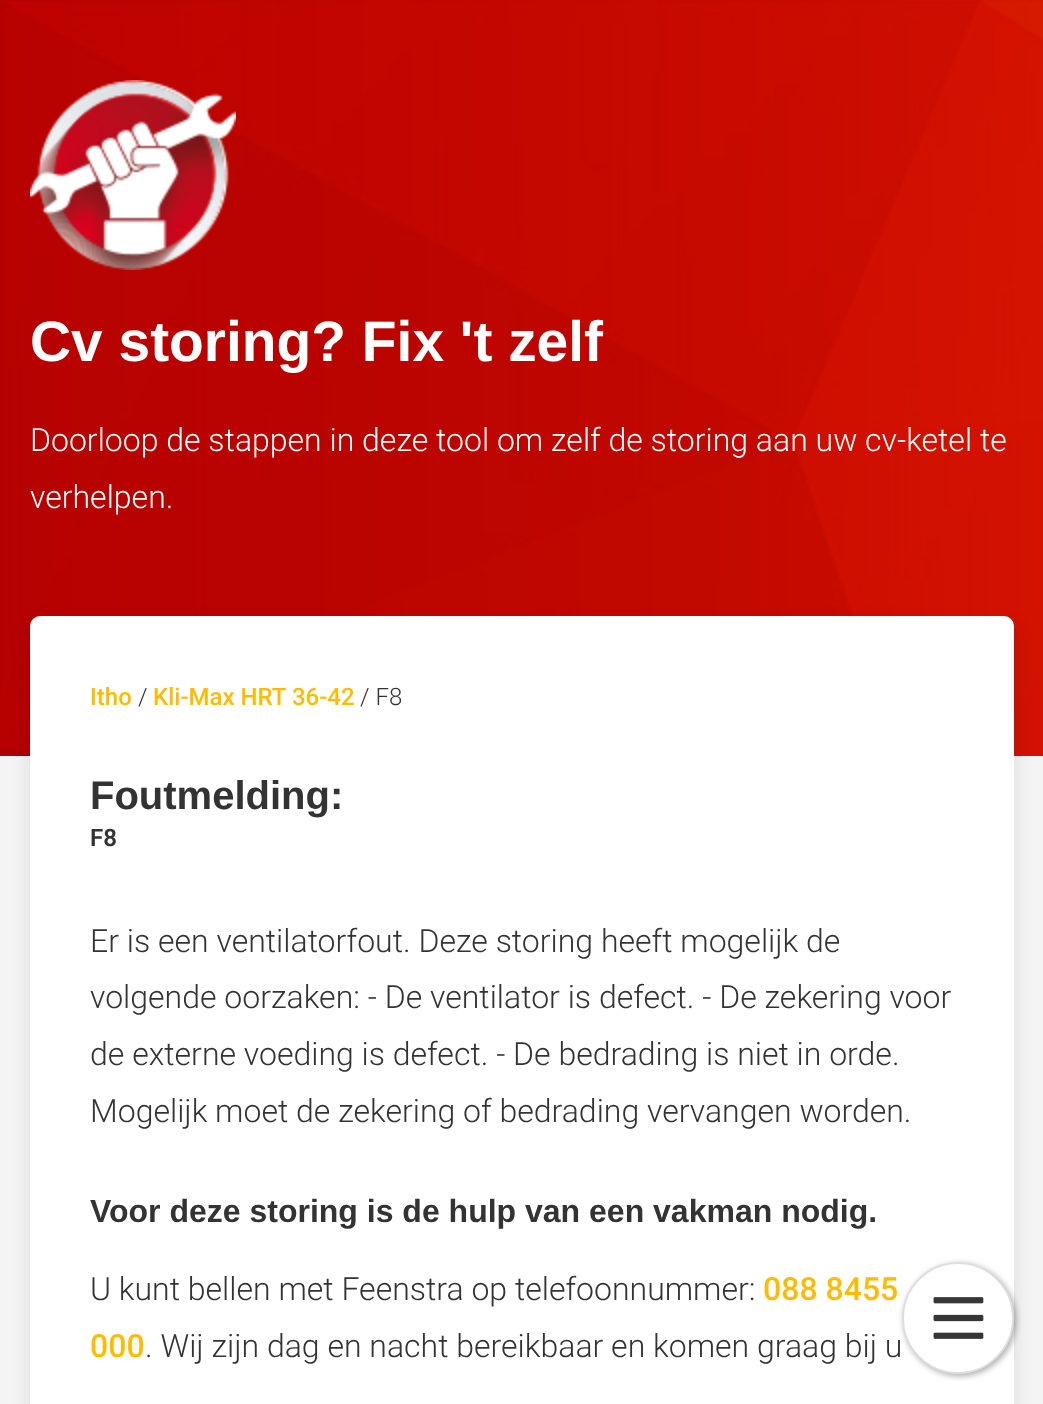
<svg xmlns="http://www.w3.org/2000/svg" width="1043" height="1404">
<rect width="100%" height="100%" fill="#f4f4f4"/>
<image x="0" y="0" width="1043" height="756" href="media/1.png"/>
<image x="30" y="80" width="206" height="190" href="media/2.png"/>
<text x="30" y="361" style="font-family:Liberation Sans;font-size:56.9px;font-weight:bold;fill:#fff">Cv storing? Fix 't zelf</text>
<text x="30" y="451" style="font-family:Roboto;font-size:32px;font-weight:300;fill:#fff">Doorloop de stappen in deze tool om zelf de storing aan uw cv-ketel te</text>
<text x="30" y="508" style="font-family:Roboto;font-size:32px;font-weight:300;fill:#fff">verhelpen.</text>
<rect x="30" y="626" width="984" height="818" rx="10" fill="#0000001a" filter="blur(10px)"/>
<rect x="30" y="616" width="984" height="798" rx="10" fill="#fff"/>
<text x="90" y="705" style="font-family:Roboto;font-size:24px;font-weight:500;fill:#fb0">Itho</text>
<text x="138" y="705" style="font-family:Roboto;font-size:24px;font-weight:300;fill:#333">/</text>
<text x="153" y="705" style="font-family:Roboto;font-size:24px;font-weight:500;fill:#fb0">Kli-Max HRT 36-42</text>
<text x="360" y="705" style="font-family:Roboto;font-size:24px;font-weight:300;fill:#333">/ F8</text>
<text x="90" y="809" style="font-family:Liberation Sans;font-size:40px;font-weight:bold;fill:#333">Foutmelding:</text>
<text x="90" y="846" style="font-family:Roboto;font-size:24px;font-weight:600;fill:#333">F8</text>
<text x="90" y="952" style="font-family:Roboto;font-size:32px;font-weight:300;fill:#333">Er is een ventilatorfout. Deze storing heeft mogelijk de</text>
<text x="90" y="1008" style="font-family:Roboto;font-size:32px;font-weight:300;fill:#333">volgende oorzaken: - De ventilator is defect. - De zekering voor</text>
<text x="90" y="1065" style="font-family:Roboto;font-size:32px;font-weight:300;fill:#333">de externe voeding is defect. - De bedrading is niet in orde.</text>
<text x="90" y="1122" style="font-family:Roboto;font-size:32px;font-weight:300;fill:#333">Mogelijk moet de zekering of bedrading vervangen worden.</text>
<text x="90" y="1222" style="font-family:Liberation Sans;font-size:32px;font-weight:bold;fill:#333">Voor deze storing is de hulp van een vakman nodig.</text>
<text x="90" y="1300" style="font-family:Roboto;font-size:32px;font-weight:300;fill:#333">U kunt bellen met Feenstra op telefoonnummer:</text>
<text x="763" y="1300" style="font-family:Roboto;font-size:32px;font-weight:500;fill:#fb0">088 8455</text>
<text x="90" y="1357" style="font-family:Roboto;font-size:32px;font-weight:500;fill:#fb0">000</text>
<text x="145" y="1357" style="font-family:Roboto;font-size:32px;font-weight:300;fill:#333">. Wij zijn dag en nacht bereikbaar en komen graag bij u</text>
<rect x="904" y="1264" width="112" height="112" rx="56" fill="#00000054" filter="blur(3px)"/>
<circle cx="958" cy="1318" r="55" fill="#fff" stroke="#dedede" stroke-width="2"/>
<image x="933" y="1297" width="51" height="42" href="media/3.png"/>
</svg>
